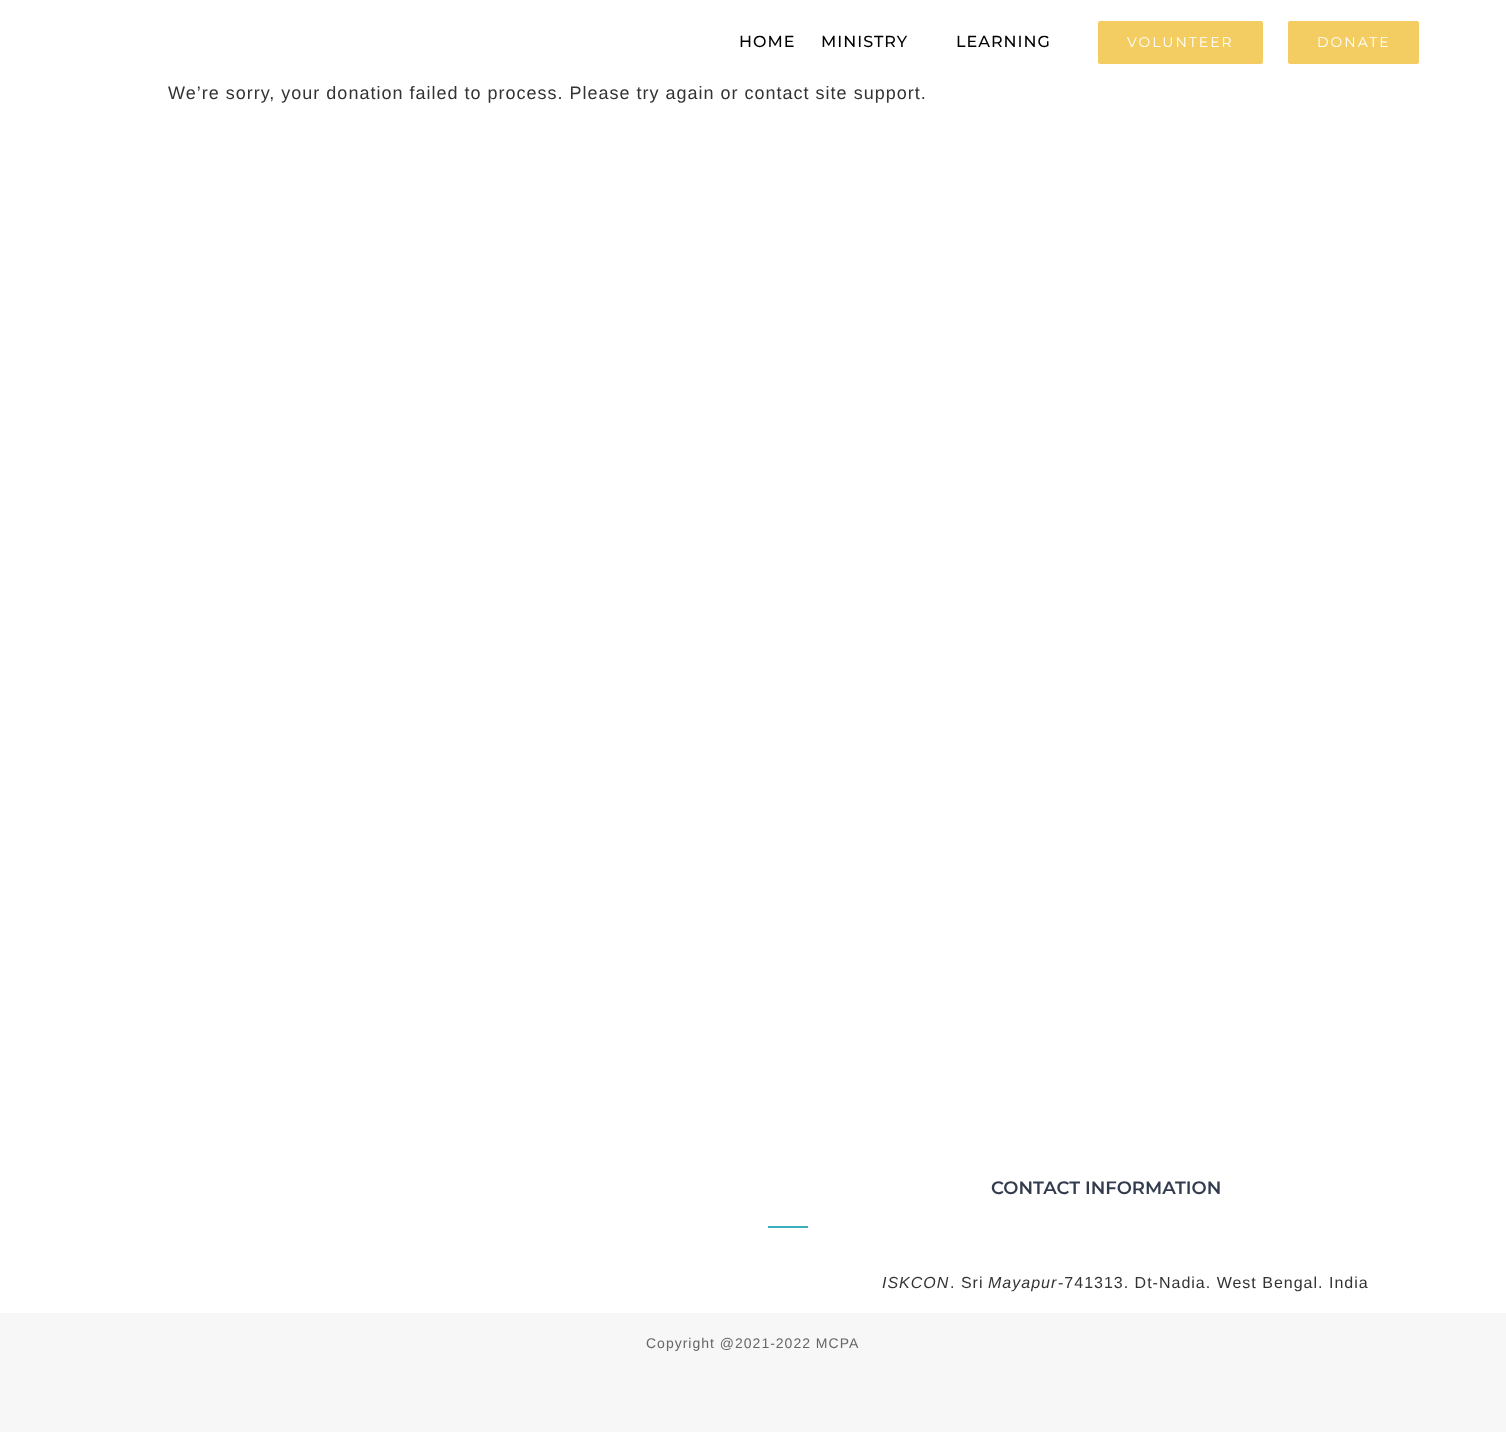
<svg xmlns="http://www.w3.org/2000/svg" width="1506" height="1432">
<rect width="100%" height="100%" fill="#fff"/>
<text x="739" y="47" style="font-family:Montserrat;font-size:16px;font-weight:500;letter-spacing:1px;fill:#000">HOME</text>
<text x="821" y="47" style="font-family:Montserrat;font-size:16px;font-weight:500;letter-spacing:1px;fill:#000">MINISTRY</text>
<text x="956" y="47" style="font-family:Montserrat;font-size:16px;font-weight:500;letter-spacing:1px;fill:#000">LEARNING</text>
<rect x="1098" y="21" width="165" height="43" rx="2" fill="#f3cd61"/>
<text x="1127" y="47" style="font-family:Montserrat;font-size:14px;letter-spacing:2px;fill:#fff">VOLUNTEER</text>
<rect x="1288" y="21" width="131" height="43" rx="2" fill="#f3cd61"/>
<text x="1317" y="47" style="font-family:Montserrat;font-size:14px;letter-spacing:2px;fill:#fff">DONATE</text>
<text x="168" y="99" style="font-family:Liberation Sans;font-size:18px;letter-spacing:1px;fill:#333">We’re sorry, your donation failed to process. Please try again or contact site support.</text>
<text x="991" y="1194" style="font-family:Montserrat;font-size:18px;font-weight:600;fill:#333c4e">CONTACT INFORMATION</text>
<rect x="768" y="1226" width="40" height="2" fill="#3bafbf"/>
<text x="882" y="1288" style="font-family:Liberation Sans;font-size:16px;font-style:italic;letter-spacing:1px;fill:#333">ISKCON</text>
<text x="950" y="1288" style="font-family:Liberation Sans;font-size:16px;letter-spacing:1px;fill:#333">. Sri</text>
<text x="988" y="1288" style="font-family:Liberation Sans;font-size:16px;font-style:italic;letter-spacing:1px;fill:#333">Mayapur</text>
<text x="1058" y="1288" style="font-family:Liberation Sans;font-size:16px;letter-spacing:1px;fill:#333">-741313. Dt-Nadia. West Bengal. India</text>
<rect y="1313" width="1506" height="119" fill="#f7f7f7"/>
<text x="646" y="1348" style="font-family:Liberation Sans;font-size:14px;letter-spacing:1px;fill:#666">Copyright @2021-2022 MCPA</text>
</svg>
